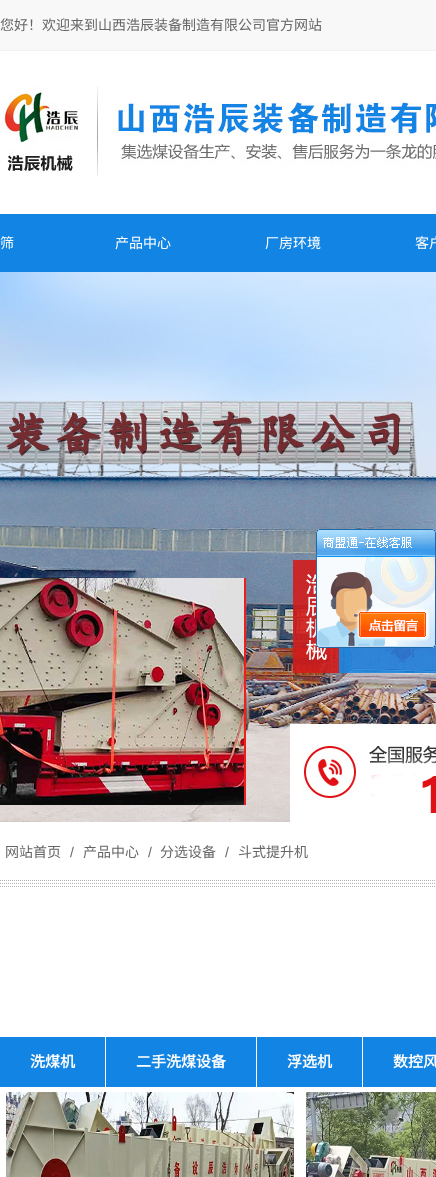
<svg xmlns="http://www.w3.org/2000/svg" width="436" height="1177">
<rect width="100%" height="100%" fill="#fff"/>
<rect width="436" height="50" fill="#f8f8f8"/>
<rect y="50" width="436" height="1" fill="#f2f2f2"/>
<text x="0" y="30" style="font-family:Noto Sans CJK SC;font-size:14px;fill:#666">您好！欢迎来到山西浩辰装备制造有限公司官方网站</text>
<image x="0" y="86" width="436" height="90" href="media/1.png"/>
<rect y="214" width="436" height="58" fill="#1284e4"/>
<text x="0" y="248" style="font-family:Noto Sans CJK SC;font-size:14px;fill:#fff">筛</text>
<text x="115" y="248" style="font-family:Noto Sans CJK SC;font-size:14px;fill:#fff">产品中心</text>
<text x="265" y="248" style="font-family:Noto Sans CJK SC;font-size:14px;fill:#fff">厂房环境</text>
<text x="415" y="248" style="font-family:Noto Sans CJK SC;font-size:14px;fill:#fff">客户</text>
<image x="0" y="272" width="436" height="550" href="media/2.png"/>
<text x="5" y="857" style="font-family:Noto Sans CJK SC;font-size:14px;fill:#666">网站首页</text>
<text x="70" y="857" style="font-family:Liberation Sans;font-size:14px;fill:#666">/</text>
<text x="83" y="857" style="font-family:Noto Sans CJK SC;font-size:14px;fill:#666">产品中心</text>
<text x="148" y="857" style="font-family:Liberation Sans;font-size:14px;fill:#666">/</text>
<text x="160" y="857" style="font-family:Noto Sans CJK SC;font-size:14px;fill:#666">分选设备</text>
<text x="225" y="857" style="font-family:Liberation Sans;font-size:14px;fill:#666">/</text>
<text x="238" y="857" style="font-family:Noto Sans CJK SC;font-size:14px;fill:#666">斗式提升机</text>
<image x="0" y="880" width="435" height="7" href="media/3.png"/>
<rect y="1037" width="436" height="50" fill="#1284e4"/>
<text x="30" y="1067" style="font-family:Noto Sans CJK SC;font-size:15px;font-weight:bold;fill:#fff">洗煤机</text>
<rect x="105" y="1037" width="1" height="50" fill="#fff"/>
<text x="136" y="1067" style="font-family:Noto Sans CJK SC;font-size:15px;font-weight:bold;fill:#fff">二手洗煤设备</text>
<rect x="256" y="1037" width="1" height="50" fill="#fff"/>
<text x="287" y="1067" style="font-family:Noto Sans CJK SC;font-size:15px;font-weight:bold;fill:#fff">浮选机</text>
<rect x="362" y="1037" width="1" height="50" fill="#fff"/>
<text x="393" y="1067" style="font-family:Noto Sans CJK SC;font-size:15px;font-weight:bold;fill:#fff">数控风</text>
<image x="6" y="1092" width="288" height="85" href="media/4.png"/>
<image x="306" y="1092" width="130" height="85" href="media/5.png"/>
<image x="316" y="529" width="120" height="119" href="media/6.png"/>
</svg>
